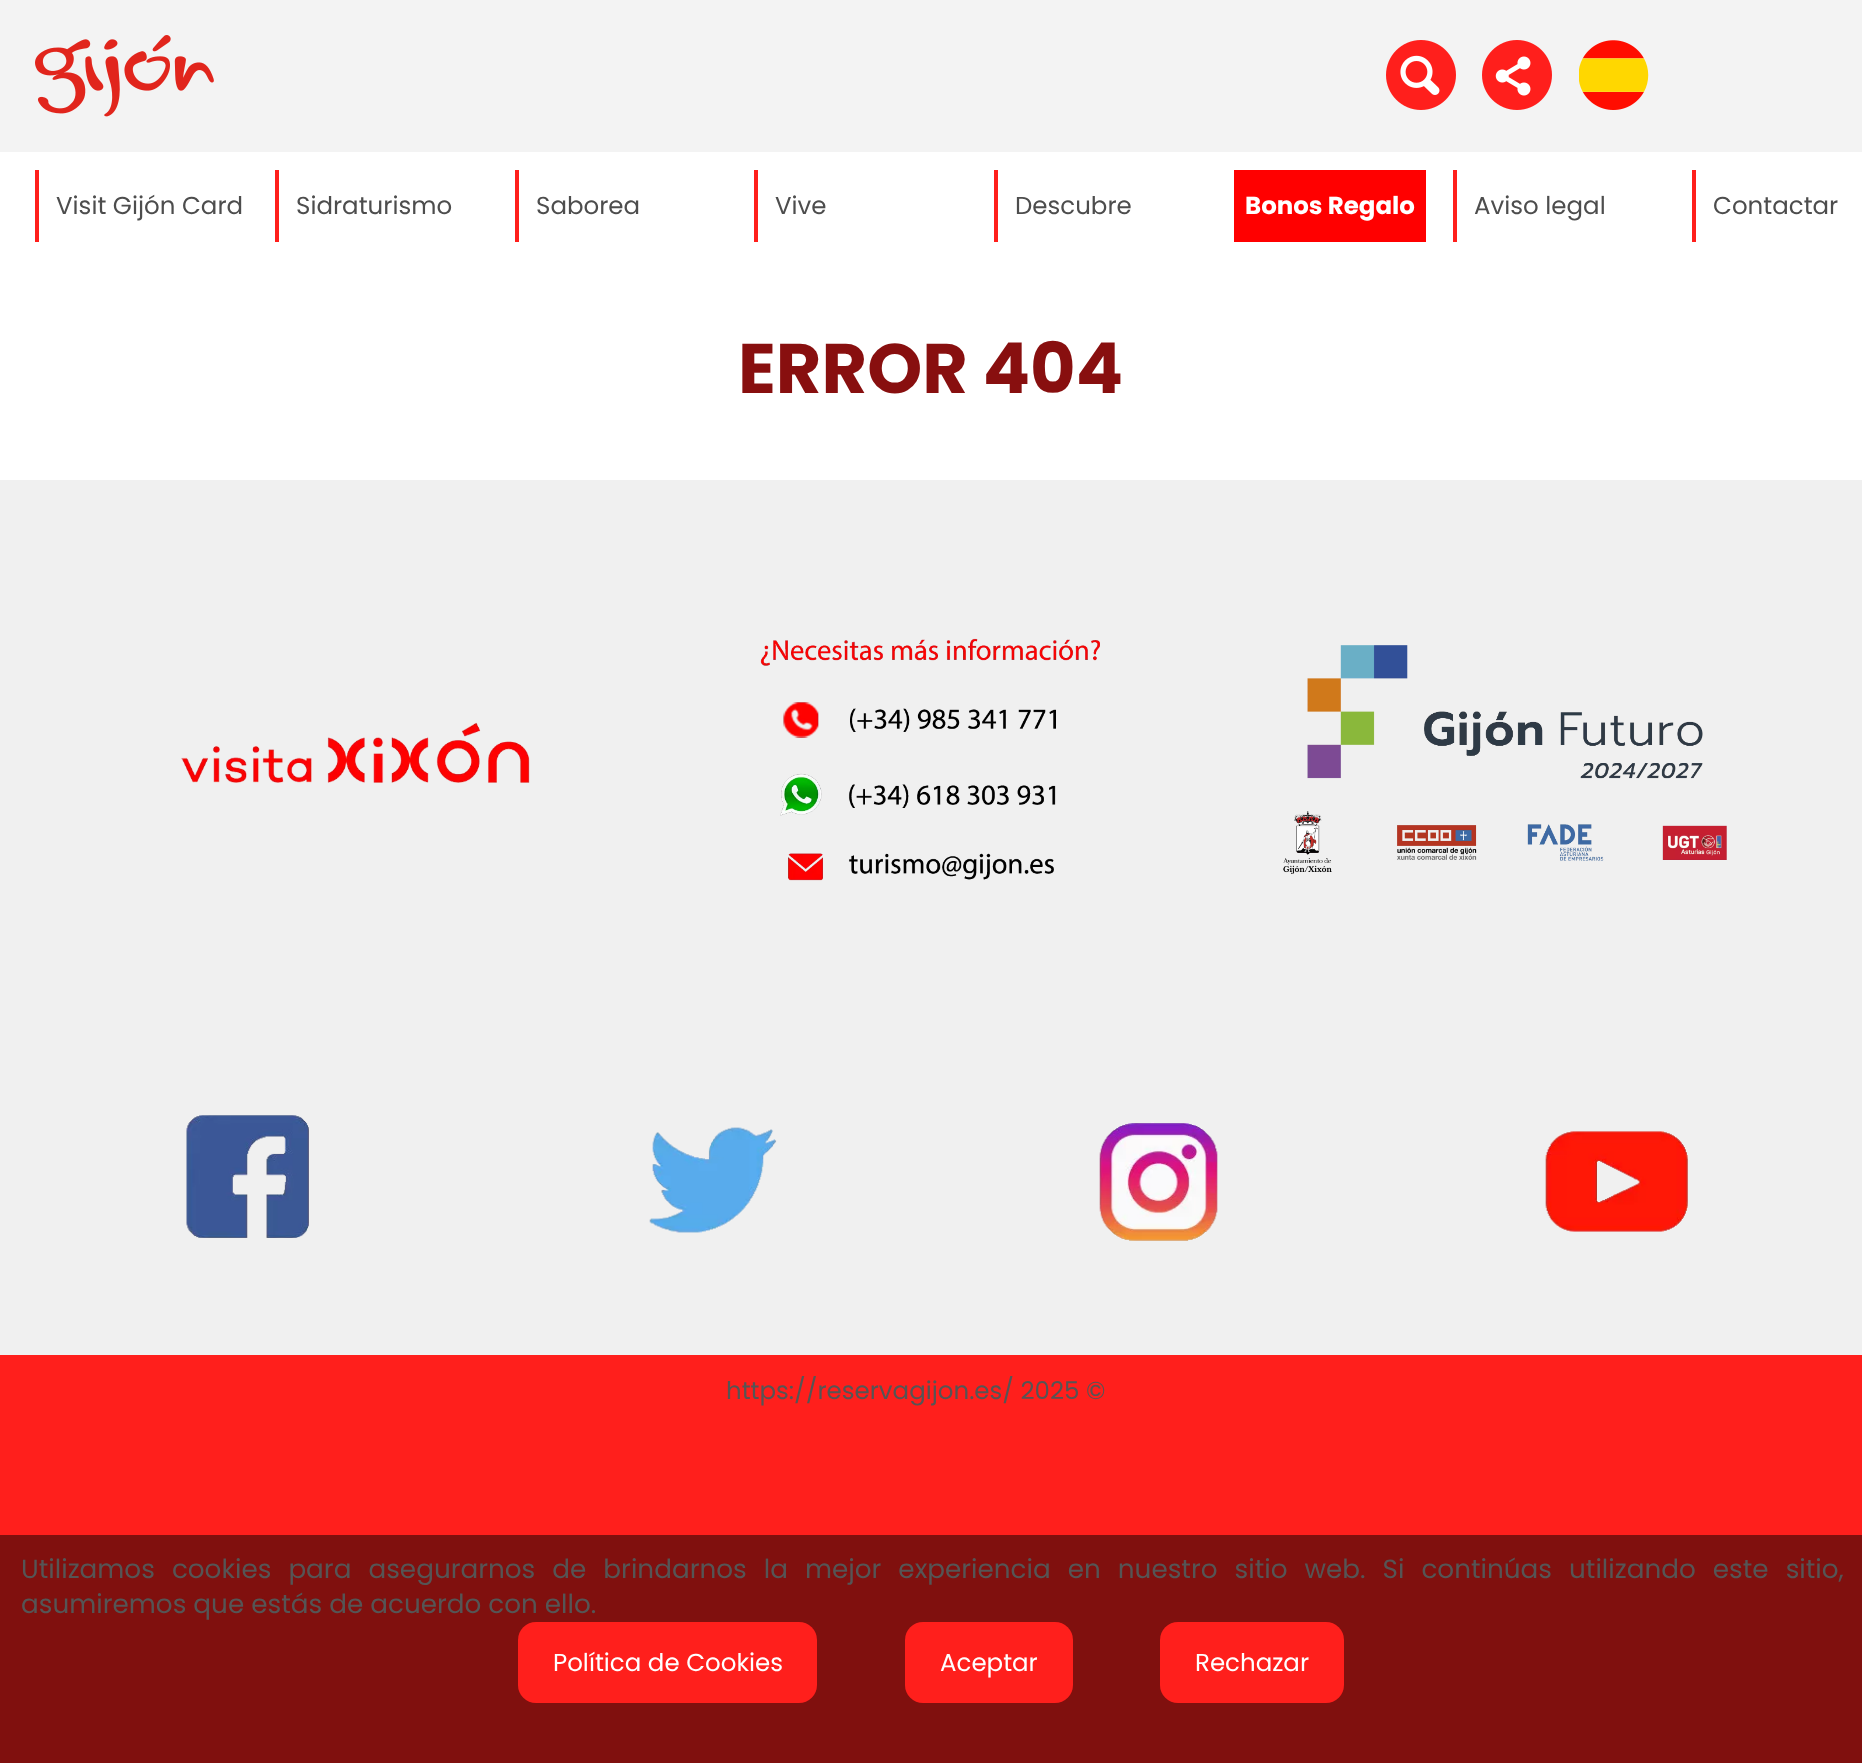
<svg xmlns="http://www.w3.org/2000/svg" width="1862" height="1763">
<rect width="100%" height="100%" fill="#fff"/>
<rect width="1862" height="152" fill="#f3f3f3"/>
<image x="35" y="35" width="179" height="82" href="media/1.png"/>
<image x="1386" y="40" width="70" height="70" href="media/2.png"/>
<image x="1482" y="40" width="70" height="70" href="media/3.png"/>
<image x="1579" y="40" width="70" height="70" href="media/4.png"/>
<rect x="35" y="170" width="4" height="72" fill="#ff1f1c"/>
<text x="56" y="214" style="font-family:Poppins;font-size:24.5px;fill:#4d4d4d">Visit Gijón Card</text>
<rect x="275" y="170" width="4" height="72" fill="#ff1f1c"/>
<text x="296" y="214" style="font-family:Poppins;font-size:24.5px;fill:#4d4d4d">Sidraturismo</text>
<rect x="515" y="170" width="4" height="72" fill="#ff1f1c"/>
<text x="536" y="214" style="font-family:Poppins;font-size:24.5px;fill:#4d4d4d">Saborea</text>
<rect x="754" y="170" width="4" height="72" fill="#ff1f1c"/>
<text x="775" y="214" style="font-family:Poppins;font-size:24.5px;fill:#4d4d4d">Vive</text>
<rect x="994" y="170" width="4" height="72" fill="#ff1f1c"/>
<text x="1015" y="214" style="font-family:Poppins;font-size:24.5px;fill:#4d4d4d">Descubre</text>
<rect x="1234" y="170" width="192" height="72" fill="#f00"/>
<text x="1245" y="214" style="font-family:Poppins;font-size:24.5px;font-weight:bold;fill:#fff">Bonos Regalo</text>
<rect x="1453" y="170" width="4" height="72" fill="#ff1f1c"/>
<text x="1474" y="214" style="font-family:Poppins;font-size:24.5px;fill:#4d4d4d">Aviso legal</text>
<rect x="1692" y="170" width="4" height="72" fill="#ff1f1c"/>
<text x="1713" y="214" style="font-family:Poppins;font-size:24.5px;fill:#4d4d4d">Contactar</text>
<text x="738" y="393" style="font-family:Poppins;font-size:70px;font-weight:bold;fill:#880f0f">ERROR 404</text>
<rect y="1355" width="1862" height="180" fill="#ff1f1c"/>
<rect y="480" width="1862" height="875" fill="#f0f0f0"/>
<image x="181" y="722" width="349" height="61" href="media/5.png"/>
<image x="760" y="638" width="340" height="243" href="media/6.png"/>
<image x="1283" y="645" width="444" height="229" href="media/7.png"/>
<image x="186" y="1115" width="123" height="123" href="media/8.png"/>
<image x="649" y="1127" width="128" height="106" href="media/9.png"/>
<image x="1099" y="1122" width="119" height="119" href="media/10.png"/>
<image x="1545" y="1131" width="143" height="101" href="media/11.png"/>
<text x="726" y="1399" style="font-family:Poppins;font-size:24.5px;fill:#555">https://reservagijon.es/ 2025 ©</text>
<rect y="1535" width="1862" height="228" fill="#80100e"/>
<text x="21" y="1578" word-spacing="10" style="font-family:Poppins;font-size:26.25px;fill:#555">Utilizamos cookies para asegurarnos de brindarnos la mejor experiencia en nuestro sitio web. Si continúas utilizando este sitio,</text>
<text x="21" y="1613" style="font-family:Poppins;font-size:26.25px;fill:#555">asumiremos que estás de acuerdo con ello.</text>
<rect x="518" y="1622" width="299" height="81" rx="18" fill="#ff1f1c"/>
<text x="553" y="1671" style="font-family:Poppins;font-size:24.5px;fill:#fff">Política de Cookies</text>
<rect x="905" y="1622" width="168" height="81" rx="18" fill="#ff1f1c"/>
<text x="940" y="1671" style="font-family:Poppins;font-size:24.5px;fill:#fff">Aceptar</text>
<rect x="1160" y="1622" width="184" height="81" rx="18" fill="#ff1f1c"/>
<text x="1195" y="1671" style="font-family:Poppins;font-size:24.5px;fill:#fff">Rechazar</text>
</svg>
